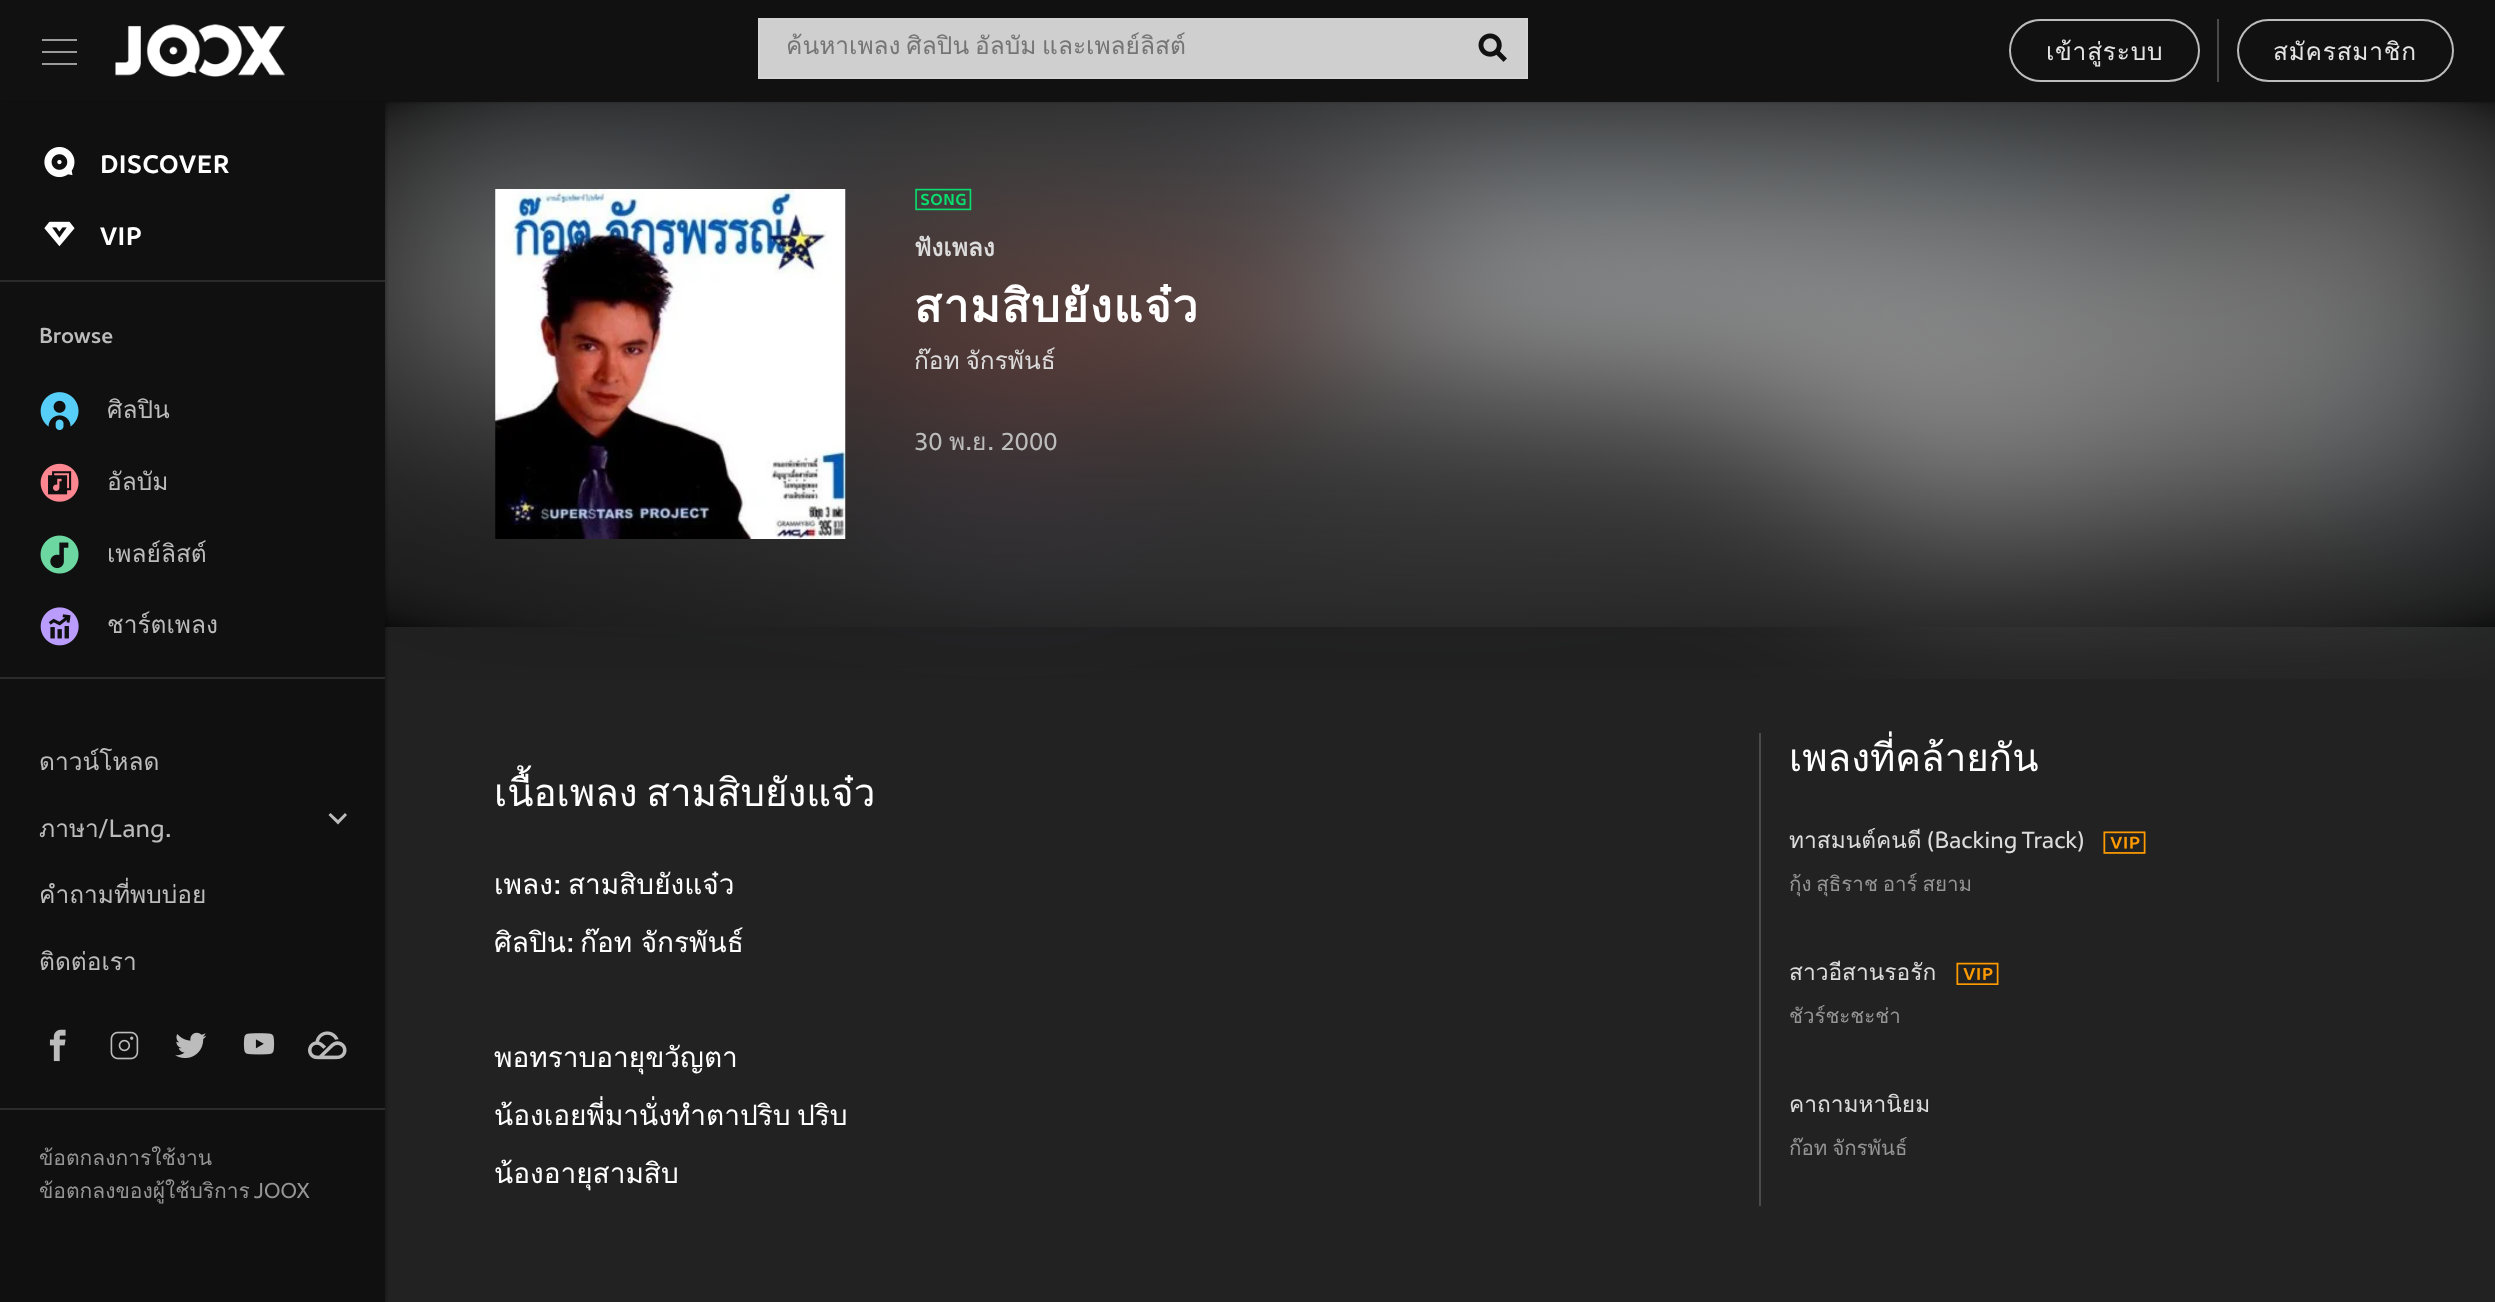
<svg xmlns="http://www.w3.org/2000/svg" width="2495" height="1302">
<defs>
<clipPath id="clip1"><rect x="786" y="26" width="670" height="39"/></clipPath>
<radialGradient id="g1" gradientUnits="userSpaceOnUse" cx="0" cy="0" r="1" gradientTransform="matrix(1492 0 0 371 1440 364)"><stop offset="0" stop-color="#999" stop-opacity="0.11"/><stop offset="0.01" stop-color="#999" stop-opacity="0.11"/><stop offset="0.76" stop-color="#2b2b2b" stop-opacity="0.48"/><stop offset="0.91" stop-color="#1c1c1c" stop-opacity="0.56"/><stop offset="0.96" stop-color="#111" stop-opacity="0.58"/><stop offset="1" stop-color="#000" stop-opacity="0.6"/></radialGradient>
</defs>
<rect width="100%" height="100%" fill="#222"/>
<image x="385" y="102" width="2110" height="577" href="media/14.png"/>
<rect y="2" width="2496" height="101" fill="#00000033" filter="blur(1px)"/>
<rect width="2495" height="102" fill="#111"/>
<rect x="42" y="39" width="35" height="2" fill="#9b9b9b"/>
<rect x="42" y="51" width="35" height="2" fill="#9b9b9b"/>
<rect x="42" y="63" width="35" height="2" fill="#9b9b9b"/>
<image x="115" y="24" width="171" height="53" href="media/1.png"/>
<rect x="759" y="19" width="768" height="59" fill="#cfcfcf" stroke="#d4d4d4" stroke-width="2"/>
<g clip-path="url(#clip1)">
<text x="786" y="54" word-spacing="-2.5" style="font-family:Loma;font-size:24.5px;fill:#757575">ค้นหาเพลง ศิลปิน อัลบัม และเพลย์ลิสต์</text>
</g>
<image x="1478" y="33" width="29" height="29" href="media/2.png"/>
<rect x="2010" y="20" width="189" height="61" rx="30.5" fill="none" stroke="#bcbcbc" stroke-width="2"/>
<text x="2046" y="60" style="font-family:Loma;font-size:24.5px;letter-spacing:0.75px;fill:#e5e5e5">เข้าสู่ระบบ</text>
<rect x="2217" y="19" width="2" height="63" fill="#4a4a4a"/>
<rect x="2238" y="20" width="215" height="61" rx="30.5" fill="none" stroke="#bcbcbc" stroke-width="2"/>
<text x="2273" y="60" style="font-family:Loma;font-size:24.5px;letter-spacing:0.75px;fill:#e5e5e5">สมัครสมาชิก</text>
<rect x="385" y="102" width="2110" height="525" fill="url(#g1)"/>
<rect x="2" y="102" width="385" height="1200" fill="#00000033" filter="blur(1px)"/>
<rect y="102" width="385" height="1200" fill="#101010"/>
<rect y="280" width="385" height="2" fill="#2b2b2b"/>
<image x="44" y="147" width="31" height="31" href="media/3.png"/>
<text x="100" y="173" style="font-family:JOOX;font-size:24.5px;font-weight:bold;letter-spacing:0.5px;fill:#fff">DISCOVER</text>
<image x="44" y="221" width="31" height="26" href="media/4.png"/>
<text x="100" y="245" style="font-family:JOOX;font-size:24.5px;font-weight:bold;letter-spacing:0.5px;fill:#fff">VIP</text>
<rect y="677" width="385" height="2" fill="#2b2b2b"/>
<text x="39" y="343" style="font-family:JOOX;font-size:21px;font-weight:500;fill:#bcbcbc">Browse</text>
<image x="40" y="392" width="39" height="39" href="media/5.png"/>
<text x="107" y="418" style="font-family:Loma;font-size:24.5px;fill:#bcbcbc">ศิลปิน</text>
<image x="40" y="463" width="39" height="39" href="media/6.png"/>
<text x="107" y="490" style="font-family:Loma;font-size:24.5px;fill:#bcbcbc">อัลบัม</text>
<image x="40" y="535" width="39" height="39" href="media/7.png"/>
<text x="107" y="562" style="font-family:Loma;font-size:24.5px;fill:#bcbcbc">เพลย์ลิสต์</text>
<image x="40" y="607" width="39" height="39" href="media/8.png"/>
<text x="107" y="633" style="font-family:Loma;font-size:24.5px;fill:#bcbcbc">ชาร์ตเพลง</text>
<rect y="1108" width="385" height="2" fill="#2b2b2b"/>
<text x="39" y="770" style="font-family:Loma;font-size:24.5px;fill:#bcbcbc">ดาวน์โหลด</text>
<text x="39" y="837" style="font-family:Loma;font-size:24.5px;fill:#bcbcbc">ภาษา</text>
<text x="98" y="837" style="font-family:JOOX;font-size:24.5px;fill:#bcbcbc">/Lang.</text>
<path d="M347 815l-2-2l-7 7l-7.5-7l-2 2l9.5 9.5z" fill="#bcbcbc"/>
<text x="39" y="903" style="font-family:Loma;font-size:24.5px;fill:#bcbcbc">คำถามที่พบบ่อย</text>
<text x="39" y="970" style="font-family:Loma;font-size:24.5px;fill:#bcbcbc">ติดต่อเรา</text>
<image x="49" y="1029" width="17" height="33" href="media/9.png"/>
<image x="110" y="1031" width="29" height="29" href="media/10.png"/>
<image x="175" y="1032" width="32" height="26" href="media/11.png"/>
<image x="243" y="1033" width="32" height="22" href="media/12.png"/>
<image x="308" y="1031" width="39" height="29" href="media/13.png"/>
<text x="39" y="1165" style="font-family:Loma;font-size:21px;fill:#959595">ข้อตกลงการใช้งาน</text>
<text x="39" y="1198" style="font-family:Loma;font-size:21px;fill:#959595">ข้อตกลงของผู้ใช้บริการ</text>
<text x="254" y="1198" style="font-family:JOOX;font-size:21px;fill:#959595">JOOX</text>
<image x="495" y="189" width="351" height="350" href="media/15.png"/>
<image x="915" y="188" width="57" height="23" href="media/16.png"/>
<text x="914" y="256" style="font-family:Loma;font-size:24.5px;font-weight:bold;fill:#dcdcdc">ฟังเพลง</text>
<text x="914" y="322" style="font-family:Loma;font-size:45.5px;font-weight:bold;letter-spacing:1.5px;fill:#fff">สามสิบยังแจ๋ว</text>
<text x="914" y="369" word-spacing="-2.5" style="font-family:Loma;font-size:24.5px;fill:#dcdcdc">ก๊อท จักรพันธ์</text>
<text x="914" y="450" style="font-family:JOOX;font-size:24.5px;fill:#bcbcbc">30</text>
<text x="949" y="450" style="font-family:Loma;font-size:24.5px;fill:#bcbcbc">พ</text>
<text x="965" y="450" style="font-family:JOOX;font-size:24.5px;fill:#bcbcbc">.</text>
<text x="972" y="450" style="font-family:Loma;font-size:24.5px;fill:#bcbcbc">ย</text>
<text x="987" y="450" style="font-family:JOOX;font-size:24.5px;fill:#bcbcbc">. 2000</text>
<rect x="1759" y="733" width="2" height="473" fill="#4a4a4a"/>
<text x="494" y="806" word-spacing="-4" style="font-family:Loma;font-size:38.5px;fill:#fff">เนื้อเพลง สามสิบยังแจ๋ว</text>
<text x="494" y="894" style="font-family:Loma;font-size:28px;fill:#fff">เพลง</text>
<text x="553" y="894" style="font-family:JOOX;font-size:28px;fill:#fff">:</text>
<text x="568" y="894" style="font-family:Loma;font-size:28px;fill:#fff">สามสิบยังแจ๋ว</text>
<text x="494" y="952" style="font-family:Loma;font-size:28px;fill:#fff">ศิลปิน</text>
<text x="566" y="952" style="font-family:JOOX;font-size:28px;fill:#fff">:</text>
<text x="580" y="952" word-spacing="-1" style="font-family:Loma;font-size:28px;fill:#fff">ก๊อท จักรพันธ์</text>
<text x="494" y="1067" style="font-family:Loma;font-size:28px;fill:#fff">พอทราบอายุขวัญตา</text>
<text x="494" y="1125" word-spacing="-3" style="font-family:Loma;font-size:28px;fill:#fff">น้องเอยพี่มานั่งทำตาปริบ ปริบ</text>
<text x="494" y="1183" style="font-family:Loma;font-size:28px;fill:#fff">น้องอายุสามสิบ</text>
<text x="1789" y="771" style="font-family:Loma;font-size:38.5px;fill:#fff">เพลงที่คล้ายกัน</text>
<text x="1789" y="848" style="font-family:Loma;font-size:22.75px;fill:#dcdcdc">ทาสมนต์คนดี</text>
<text x="1927" y="848" style="font-family:JOOX;font-size:22.75px;fill:#dcdcdc">(Backing Track)</text>
<image x="2103" y="831" width="43" height="23" href="media/17.png"/>
<text x="1789" y="891" word-spacing="-2" style="font-family:Loma;font-size:20.5px;fill:#959595">กุ้ง สุธิราช อาร์ สยาม</text>
<text x="1789" y="980" style="font-family:Loma;font-size:22.75px;fill:#dcdcdc">สาวอีสานรอรัก</text>
<image x="1956" y="962" width="43" height="23" href="media/18.png"/>
<text x="1789" y="1023" style="font-family:Loma;font-size:20.5px;fill:#959595">ชัวร์ชะชะช่า</text>
<text x="1789" y="1112" style="font-family:Loma;font-size:22.75px;fill:#dcdcdc">คาถามหานิยม</text>
<text x="1789" y="1155" word-spacing="-2" style="font-family:Loma;font-size:20.5px;fill:#959595">ก๊อท จักรพันธ์</text>
</svg>
